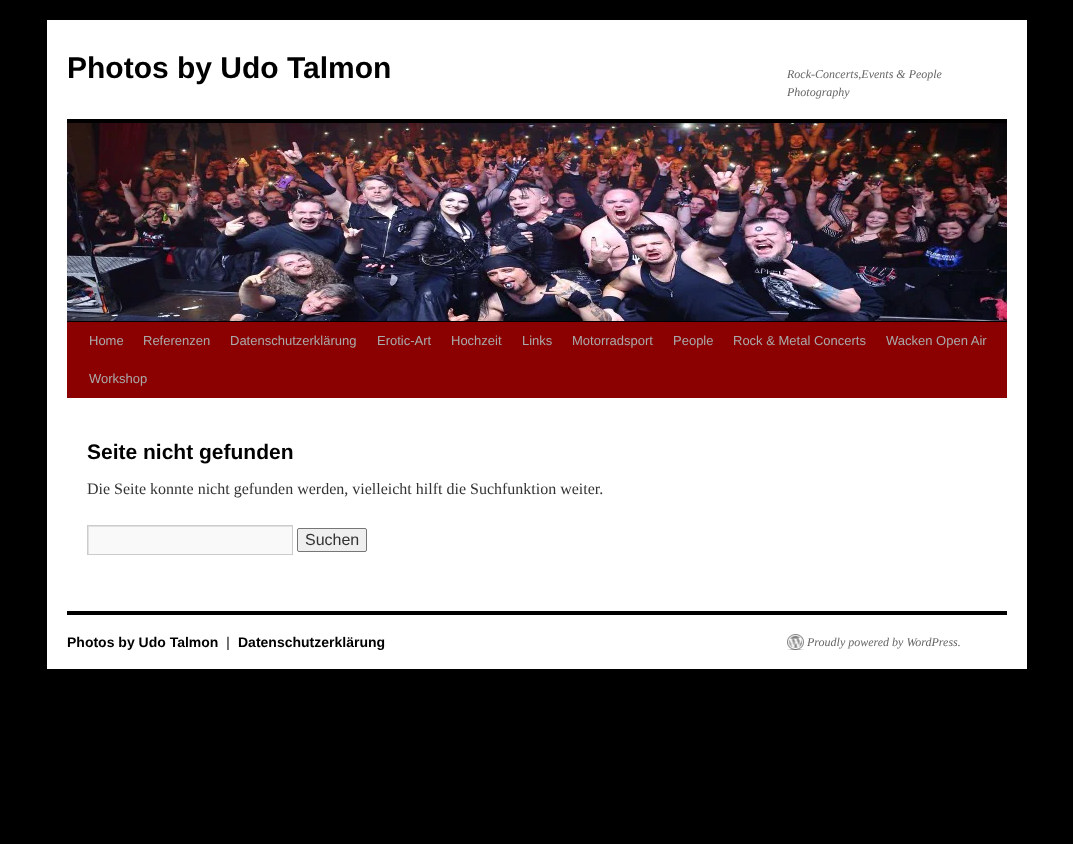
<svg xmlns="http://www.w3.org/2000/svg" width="1073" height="844">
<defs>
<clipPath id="clip1"><rect x="88" y="526" width="204" height="28"/></clipPath>
</defs>
<rect width="100%" height="100%" fill="#000"/>
<rect x="47" y="20" width="980" height="649" fill="#fff"/>
<text x="67" y="78" style="font-family:Liberation Sans;font-size:30px;font-weight:bold;fill:#000">Photos by Udo Talmon</text>
<text x="787" y="78" style="font-family:Liberation Serif;font-size:12px;font-style:italic;fill:#666">Rock-Concerts,Events &amp; People</text>
<text x="787" y="96" style="font-family:Liberation Serif;font-size:12px;font-style:italic;fill:#666">Photography</text>
<rect x="67" y="119" width="940" height="4" fill="#000"/>
<rect x="67" y="321" width="940" height="1" fill="#000"/>
<image x="67" y="123" width="940" height="198" href="media/1.png"/>
<rect x="67" y="322" width="940" height="76" fill="#8b0000"/>
<text x="89" y="345" style="font-family:Liberation Sans;font-size:13px;fill:#aaa">Home</text>
<text x="143" y="345" style="font-family:Liberation Sans;font-size:13px;fill:#aaa">Referenzen</text>
<text x="230" y="345" style="font-family:Liberation Sans;font-size:13px;fill:#aaa">Datenschutzerklärung</text>
<text x="377" y="345" style="font-family:Liberation Sans;font-size:13px;fill:#aaa">Erotic-Art</text>
<text x="451" y="345" style="font-family:Liberation Sans;font-size:13px;fill:#aaa">Hochzeit</text>
<text x="522" y="345" style="font-family:Liberation Sans;font-size:13px;fill:#aaa">Links</text>
<text x="572" y="345" style="font-family:Liberation Sans;font-size:13px;fill:#aaa">Motorradsport</text>
<text x="673" y="345" style="font-family:Liberation Sans;font-size:13px;fill:#aaa">People</text>
<text x="733" y="345" style="font-family:Liberation Sans;font-size:13px;fill:#aaa">Rock &amp; Metal Concerts</text>
<text x="886" y="345" style="font-family:Liberation Sans;font-size:13px;fill:#aaa">Wacken Open Air</text>
<text x="89" y="383" style="font-family:Liberation Sans;font-size:13px;fill:#aaa">Workshop</text>
<text x="87" y="459" style="font-family:Liberation Sans;font-size:21px;font-weight:bold;fill:#000">Seite nicht gefunden</text>
<text x="87" y="494" style="font-family:Liberation Serif;font-size:16px;fill:#333">Die Seite konnte nicht gefunden werden, vielleicht hilft die Suchfunktion weiter.</text>
<rect x="89" y="527" width="203" height="27" fill="#f9f9f9"/>
<g clip-path="url(#clip1)">
<path d="M-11 427h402v226h-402zm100 100h204v28h-204z" fill="#e0e0e0" fill-rule="evenodd"/>
</g>
<rect x="87.5" y="525.5" width="205" height="29" fill="none" stroke="#ccc"/>
<rect x="297.5" y="528.5" width="69" height="23" rx="1.5" fill="#efefef" stroke="#767676"/>
<text x="305" y="545" style="font-family:Liberation Sans;font-size:16px;fill:#333">Suchen</text>
<rect x="67" y="611" width="940" height="4" fill="#000"/>
<text x="67" y="647" style="font-family:Liberation Sans;font-size:14px;font-weight:bold;fill:#000">Photos by Udo Talmon</text>
<text x="226" y="647" style="font-family:Liberation Sans;font-size:14px;font-weight:bold;fill:#666">|</text>
<text x="238" y="647" style="font-family:Liberation Sans;font-size:14px;font-weight:bold;fill:#000">Datenschutzerklärung</text>
<image x="787" y="634" width="17" height="16" href="media/2.png"/>
<text x="807" y="646" style="font-family:Liberation Serif;font-size:12px;font-style:italic;fill:#666">Proudly powered by WordPress.</text>
</svg>
